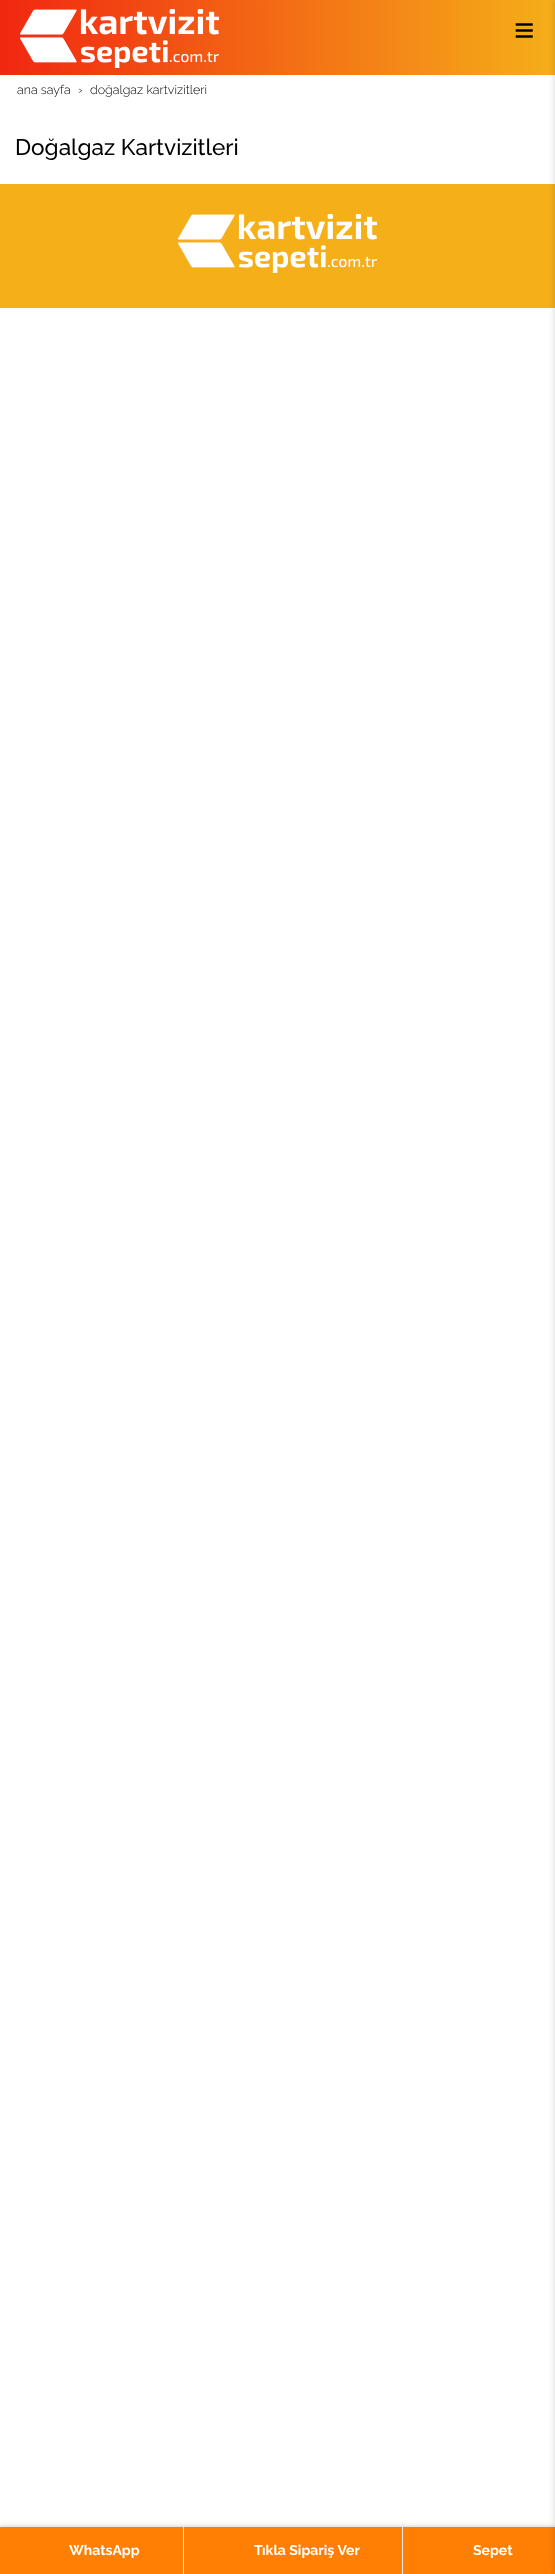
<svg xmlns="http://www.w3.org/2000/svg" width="555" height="2574">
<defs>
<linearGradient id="g1" gradientUnits="userSpaceOnUse" x1="0" y1="38" x2="555" y2="37"><stop offset="0" stop-color="#f12711"/><stop offset="1" stop-color="#f5af19"/></linearGradient>
</defs>
<rect width="100%" height="100%" fill="#fff"/>
<rect width="555" height="75" fill="url(#g1)"/>
<image x="20" y="9" width="199" height="59" href="media/1.png"/>
<text x="514" y="42" style="font-family:Liberation Sans;font-size:35px;fill:#000">≡</text>
<text x="17" y="94" style="font-family:Raleway;font-size:12.5px;font-weight:300;fill:#000">ana sayfa</text>
<text x="78" y="94" style="font-family:Raleway;font-size:12.5px;font-weight:300;fill:#000">›</text>
<text x="90" y="94" style="font-family:Raleway;font-size:12.5px;font-weight:300;fill:#000">doğalgaz kartvizitleri</text>
<text x="15" y="155" style="font-family:Raleway;font-size:22.5px;font-weight:500;fill:#000">Doğalgaz Kartvizitleri</text>
<rect y="184" width="555" height="124" fill="#f5af19"/>
<image x="178" y="214" width="199" height="59" href="media/2.png"/>
<rect y="2527" width="555" height="47" fill="#00000040" filter="blur(2.5px)"/>
<rect y="2527" width="555" height="47" fill="#ff7f04"/>
<rect x="183" y="2527" width="1" height="47" fill="#eee"/>
<text x="69" y="2555" style="font-family:Raleway;font-size:14px;font-weight:bold;fill:#fff">WhatsApp</text>
<rect x="402" y="2527" width="1" height="47" fill="#eee"/>
<text x="254" y="2555" style="font-family:Raleway;font-size:14px;font-weight:bold;fill:#fff">Tıkla Sipariş Ver</text>
<text x="473" y="2555" style="font-family:Raleway;font-size:14px;font-weight:bold;fill:#fff">Sepet</text>
<rect x="553" width="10" height="2574" fill="#0000001a" filter="blur(2.5px)"/>
</svg>
